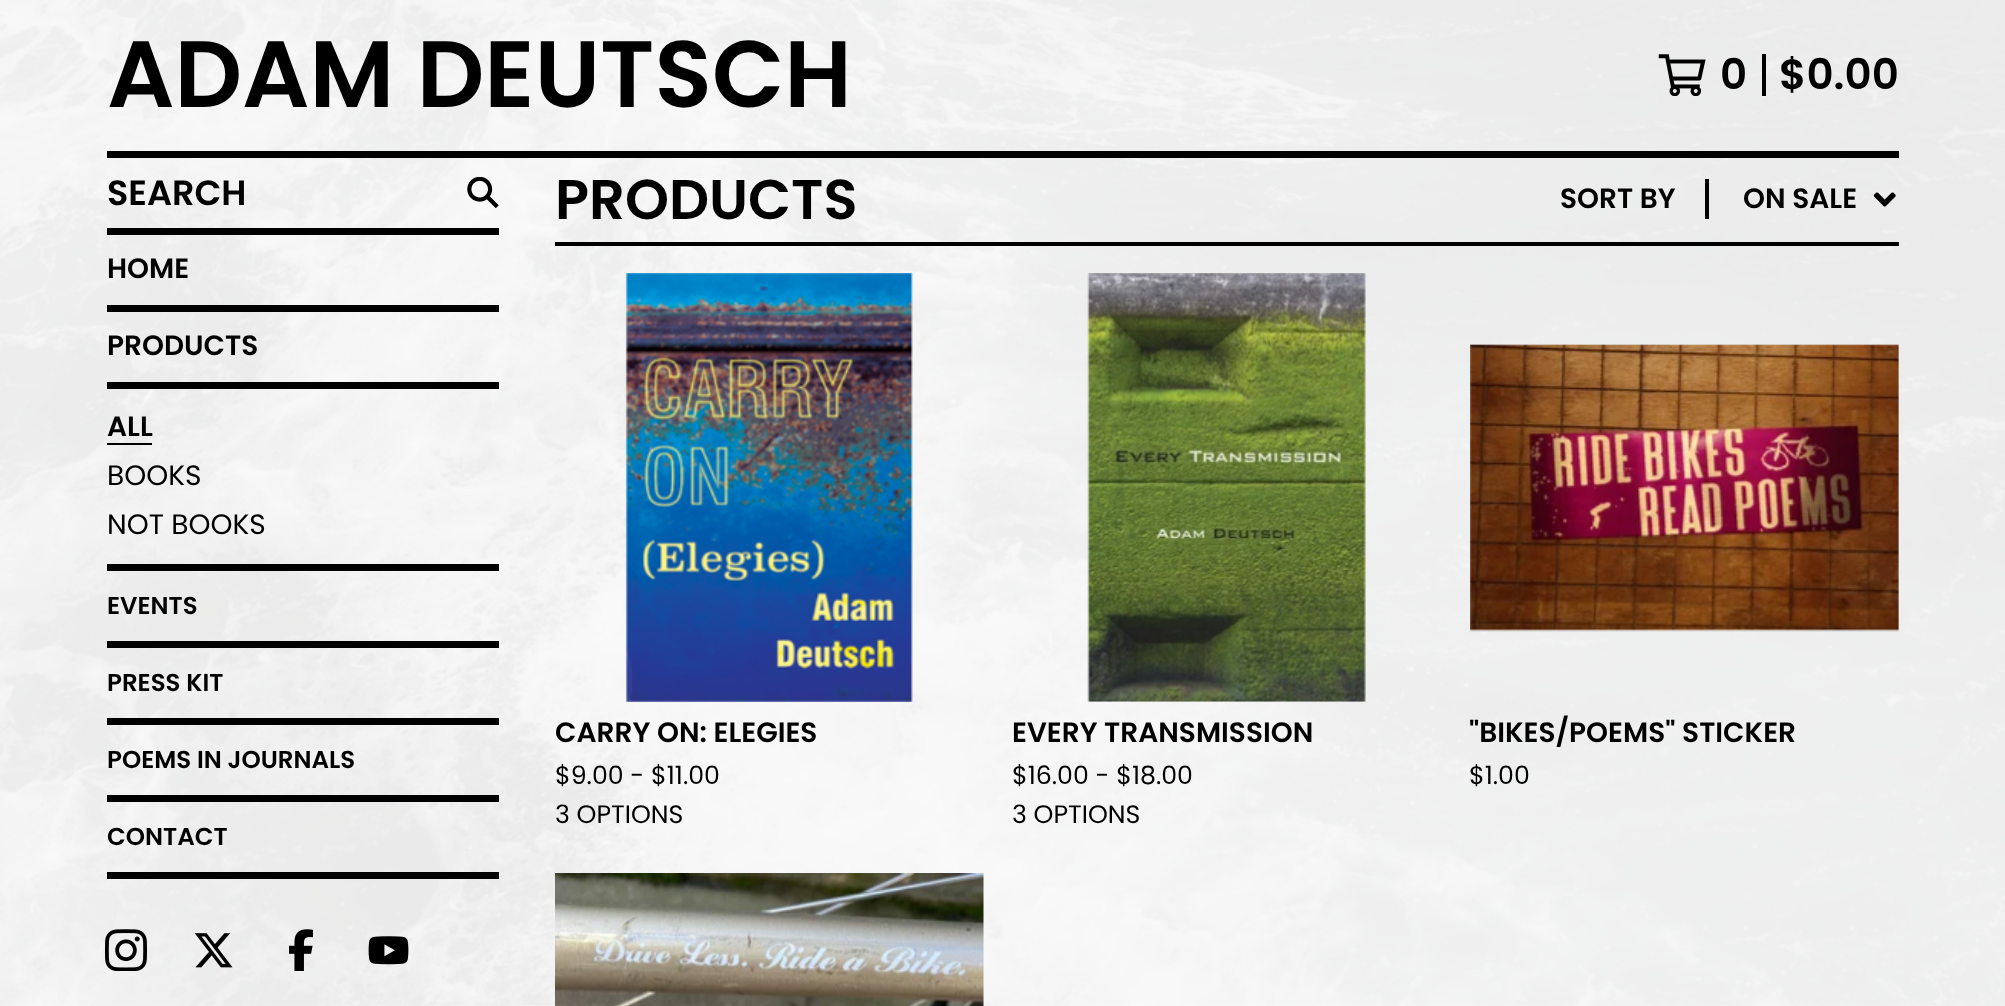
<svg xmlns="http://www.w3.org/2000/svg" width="2005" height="1006">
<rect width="100%" height="100%" fill="#fff"/>
<image x="0" y="0" width="2005" height="1006" href="media/1.png"/>
<rect x="107" y="151" width="1792" height="7" fill="#000"/>
<text x="107" y="107" style="font-family:Poppins;font-size:94.25px;font-weight:600;fill:#000">ADAM DEUTSCH</text>
<image x="1658" y="54" width="48" height="42" href="media/2.png"/>
<rect x="1762" y="54" width="4" height="42" fill="#000"/>
<text x="1720" y="89" style="font-family:Poppins;font-size:42px;font-weight:600;fill:#000">0</text>
<text x="1779" y="89" style="font-family:Poppins;font-size:42px;font-weight:600;fill:#000">$0.00</text>
<rect x="107" y="228" width="392" height="7" fill="#000"/>
<text x="107" y="205" style="font-family:Poppins;font-size:35px;font-weight:600;fill:#000">SEARCH</text>
<image x="467" y="177" width="32" height="31" href="media/3.png"/>
<rect x="107" y="305" width="392" height="7" fill="#000"/>
<text x="107" y="278" style="font-family:Poppins;font-size:28px;font-weight:600;fill:#000">HOME</text>
<rect x="107" y="564" width="392" height="7" fill="#000"/>
<rect x="107" y="382" width="392" height="7" fill="#000"/>
<text x="107" y="355" style="font-family:Poppins;font-size:28px;font-weight:600;fill:#000">PRODUCTS</text>
<text x="107" y="436" style="font-family:Poppins;font-size:28px;font-weight:600;fill:#000">ALL</text>
<rect x="107" y="443" width="45" height="2" fill="#000"/>
<text x="107" y="485" style="font-family:Poppins;font-size:28px;fill:#000">BOOKS</text>
<text x="107" y="534" style="font-family:Poppins;font-size:28px;fill:#000">NOT BOOKS</text>
<rect x="107" y="872" width="392" height="7" fill="#000"/>
<rect x="107" y="641" width="392" height="7" fill="#000"/>
<text x="107" y="614" style="font-family:Poppins;font-size:24.5px;font-weight:600;fill:#000">EVENTS</text>
<rect x="107" y="718" width="392" height="7" fill="#000"/>
<text x="107" y="691" style="font-family:Poppins;font-size:24.5px;font-weight:600;fill:#000">PRESS KIT</text>
<rect x="107" y="795" width="392" height="7" fill="#000"/>
<text x="107" y="768" style="font-family:Poppins;font-size:24.5px;font-weight:600;fill:#000">POEMS IN JOURNALS</text>
<text x="107" y="845" style="font-family:Poppins;font-size:24.5px;font-weight:600;fill:#000">CONTACT</text>
<image x="105" y="929" width="42" height="42" href="media/4.png"/>
<image x="194" y="933" width="39" height="35" href="media/5.png"/>
<image x="289" y="929" width="24" height="42" href="media/6.png"/>
<image x="368" y="936" width="41" height="29" href="media/7.png"/>
<rect x="555" y="242" width="1344" height="4" fill="#000"/>
<text x="555" y="219" style="font-family:Poppins;font-size:56px;font-weight:600;fill:#000">PRODUCTS</text>
<text x="1560" y="208" style="font-family:Poppins;font-size:28px;font-weight:600;fill:#000">SORT BY</text>
<rect x="1705" y="179" width="4" height="40" fill="#000"/>
<text x="1743" y="208" style="font-family:Poppins;font-size:28px;font-weight:600;fill:#000">ON SALE</text>
<image x="1873" y="192" width="23" height="15" href="media/8.png"/>
<image x="625" y="273" width="288" height="429" href="media/9.png"/>
<text x="555" y="742" style="font-family:Poppins;font-size:28px;font-weight:600;fill:#000">CARRY ON: ELEGIES</text>
<text x="555" y="784" style="font-family:Poppins;font-size:25.25px;fill:#000">$9.00 - $11.00</text>
<text x="555" y="823" style="font-family:Poppins;font-size:25.25px;fill:#000">3 OPTIONS</text>
<image x="1087" y="273" width="279" height="429" href="media/10.png"/>
<text x="1012" y="742" style="font-family:Poppins;font-size:28px;font-weight:600;fill:#000">EVERY TRANSMISSION</text>
<text x="1012" y="784" style="font-family:Poppins;font-size:25.25px;fill:#000">$16.00 - $18.00</text>
<text x="1012" y="823" style="font-family:Poppins;font-size:25.25px;fill:#000">3 OPTIONS</text>
<image x="1470" y="344" width="429" height="288" href="media/11.png"/>
<text x="1469" y="742" style="font-family:Poppins;font-size:28px;font-weight:600;fill:#000">"BIKES/POEMS" STICKER</text>
<text x="1469" y="784" style="font-family:Poppins;font-size:25.25px;fill:#000">$1.00</text>
<image x="555" y="873" width="429" height="133" href="media/12.png"/>
</svg>
